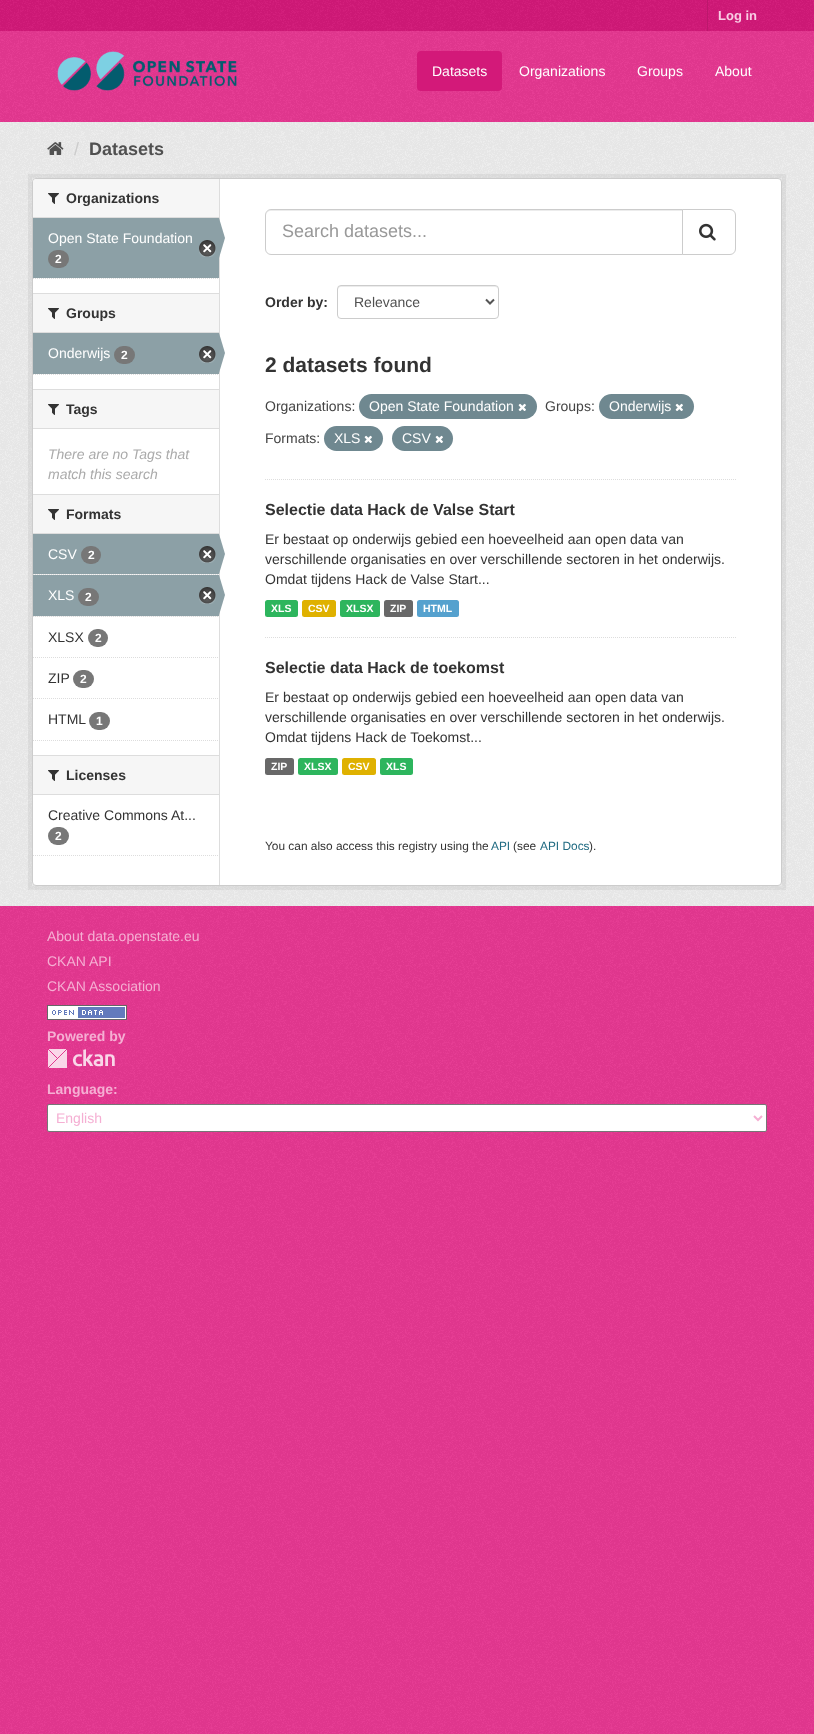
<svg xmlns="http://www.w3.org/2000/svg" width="814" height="1734">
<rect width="100%" height="100%" fill="#e73892"/>
<image x="0" y="1152" width="814" height="582" href="media/1.png"/>
<rect width="814" height="31" fill="#d31979"/>
<image x="0" y="0" width="814" height="31" href="media/2.png"/>
<rect x="707" width="1" height="31" fill="#bc176c"/>
<text x="718" y="20" style="font-family:Liberation Sans;font-size:13px;font-weight:bold;fill:#f9cde4">Log in</text>
<image x="0" y="31" width="814" height="91" href="media/3.png"/>
<image x="57" y="51" width="180" height="40" href="media/4.png"/>
<rect x="417" y="51" width="85" height="40" rx="4" fill="#d31979"/>
<text x="432" y="76" style="font-family:Liberation Sans;font-size:14px;fill:#fff">Datasets</text>
<text x="519" y="76" style="font-family:Liberation Sans;font-size:14px;fill:#fff">Organizations</text>
<text x="637" y="76" style="font-family:Liberation Sans;font-size:14px;fill:#fff">Groups</text>
<text x="715" y="76" style="font-family:Liberation Sans;font-size:14px;fill:#fff">About</text>
<rect y="122" width="814" height="784" fill="#eee"/>
<image x="0" y="122" width="814" height="784" href="media/5.png"/>
<image x="47" y="142" width="17" height="13" href="media/6.png"/>
<text x="74" y="155" style="font-family:Liberation Sans;font-size:18px;fill:#ccc">/</text>
<text x="89" y="155" style="font-family:Liberation Sans;font-size:18px;font-weight:bold;fill:#505050">Datasets</text>
<rect x="30" y="176" width="754" height="712" fill="none" stroke="#0000000d" stroke-width="4"/>
<rect x="32.5" y="178.5" width="749" height="707" rx="3.5" fill="#fff" stroke="#ccc"/>
<path d="M36 179h183v39h-186v-36c0-1.5 1.5-3 3-3z" fill="#f6f6f6"/>
<rect x="33" y="217" width="186" height="1" fill="#ddd"/>
<image x="48" y="193" width="11" height="11" href="media/7.png"/>
<text x="66" y="203" style="font-family:Liberation Sans;font-size:14px;font-weight:bold;fill:#333">Organizations</text>
<rect x="33" y="218" width="186" height="60" fill="#8ca0a6"/>
<text x="48" y="243" style="font-family:Liberation Sans;font-size:14px;fill:#fff">Open State Foundation</text>
<image x="199" y="240" width="17" height="17" href="media/8.png"/>
<rect x="219" y="179" width="1" height="706" fill="#ddd"/>
<path d="M219 258v-40l6 20z" fill="#8ca0a6"/>
<rect x="48" y="250" width="21" height="18" rx="9" fill="#777"/>
<text x="55" y="263" style="font-family:Liberation Sans;font-size:12px;font-weight:bold;fill:#fff">2</text>
<path d="M33 278.5h186" fill="none" stroke="#ddd" stroke-dasharray="1 1"/>
<rect x="33" y="294" width="186" height="38" fill="#f6f6f6"/>
<rect x="33" y="293" width="186" height="1" fill="#ddd"/>
<rect x="33" y="332" width="186" height="1" fill="#ddd"/>
<image x="48" y="308" width="11" height="11" href="media/7.png"/>
<text x="66" y="318" style="font-family:Liberation Sans;font-size:14px;font-weight:bold;fill:#333">Groups</text>
<rect x="33" y="333" width="186" height="41" fill="#8ca0a6"/>
<text x="48" y="358" style="font-family:Liberation Sans;font-size:14px;fill:#fff">Onderwijs</text>
<rect x="114" y="346" width="21" height="18" rx="9" fill="#777"/>
<text x="121" y="359" style="font-family:Liberation Sans;font-size:12px;font-weight:bold;fill:#fff">2</text>
<image x="199" y="346" width="17" height="17" href="media/8.png"/>
<path d="M219 373v-40l6 20z" fill="#8ca0a6"/>
<path d="M33 374.5h186" fill="none" stroke="#ddd" stroke-dasharray="1 1"/>
<rect x="33" y="390" width="186" height="38" fill="#f6f6f6"/>
<rect x="33" y="389" width="186" height="1" fill="#ddd"/>
<rect x="33" y="428" width="186" height="1" fill="#ddd"/>
<image x="48" y="404" width="11" height="11" href="media/7.png"/>
<text x="66" y="414" style="font-family:Liberation Sans;font-size:14px;font-weight:bold;fill:#333">Tags</text>
<text x="48" y="459" style="font-family:Liberation Sans;font-size:14px;font-style:italic;fill:#aaa">There are no Tags that</text>
<text x="48" y="479" style="font-family:Liberation Sans;font-size:14px;font-style:italic;fill:#aaa">match this search</text>
<rect x="33" y="495" width="186" height="38" fill="#f6f6f6"/>
<rect x="33" y="494" width="186" height="1" fill="#ddd"/>
<rect x="33" y="533" width="186" height="1" fill="#ddd"/>
<image x="48" y="509" width="11" height="11" href="media/7.png"/>
<text x="66" y="519" style="font-family:Liberation Sans;font-size:14px;font-weight:bold;fill:#333">Formats</text>
<rect x="34" y="574" width="185" height="1" fill="#f6f6f6"/>
<path d="M33 574.5h186" fill="none" stroke="#ddd" stroke-dasharray="1 1"/>
<rect x="33" y="534" width="186" height="40" fill="#8ca0a6"/>
<text x="48" y="559" style="font-family:Liberation Sans;font-size:14px;fill:#fff">CSV</text>
<rect x="81" y="546" width="20" height="18" rx="9" fill="#777"/>
<text x="88" y="559" style="font-family:Liberation Sans;font-size:12px;font-weight:bold;fill:#fff">2</text>
<image x="199" y="546" width="17" height="17" href="media/8.png"/>
<path d="M219 574v-40l6 20z" fill="#8ca0a6"/>
<rect x="34" y="616" width="185" height="1" fill="#f6f6f6"/>
<path d="M33 616.5h186" fill="none" stroke="#ddd" stroke-dasharray="1 1"/>
<rect x="33" y="575" width="186" height="41" fill="#8ca0a6"/>
<text x="48" y="600" style="font-family:Liberation Sans;font-size:14px;fill:#fff">XLS</text>
<rect x="78" y="588" width="21" height="18" rx="9" fill="#777"/>
<text x="85" y="601" style="font-family:Liberation Sans;font-size:12px;font-weight:bold;fill:#fff">2</text>
<image x="199" y="587" width="17" height="17" href="media/8.png"/>
<path d="M219 615v-40l6 20z" fill="#8ca0a6"/>
<path d="M33 657.5h186" fill="none" stroke="#ddd" stroke-dasharray="1 1"/>
<text x="48" y="642" style="font-family:Liberation Sans;font-size:14px;fill:#333">XLSX</text>
<rect x="88" y="629" width="20" height="18" rx="9" fill="#777"/>
<text x="95" y="642" style="font-family:Liberation Sans;font-size:12px;font-weight:bold;fill:#fff">2</text>
<path d="M33 698.5h186" fill="none" stroke="#ddd" stroke-dasharray="1 1"/>
<text x="48" y="683" style="font-family:Liberation Sans;font-size:14px;fill:#333">ZIP</text>
<rect x="73" y="670" width="21" height="18" rx="9" fill="#777"/>
<text x="80" y="683" style="font-family:Liberation Sans;font-size:12px;font-weight:bold;fill:#fff">2</text>
<text x="48" y="724" style="font-family:Liberation Sans;font-size:14px;fill:#333">HTML</text>
<rect x="89" y="712" width="21" height="18" rx="9" fill="#777"/>
<text x="96" y="725" style="font-family:Liberation Sans;font-size:12px;font-weight:bold;fill:#fff">1</text>
<path d="M33 740.5h186" fill="none" stroke="#ddd" stroke-dasharray="1 1"/>
<rect x="33" y="756" width="186" height="38" fill="#f6f6f6"/>
<rect x="33" y="755" width="186" height="1" fill="#ddd"/>
<rect x="33" y="794" width="186" height="1" fill="#ddd"/>
<image x="48" y="770" width="11" height="11" href="media/7.png"/>
<text x="66" y="780" style="font-family:Liberation Sans;font-size:14px;font-weight:bold;fill:#333">Licenses</text>
<text x="48" y="820" style="font-family:Liberation Sans;font-size:14px;fill:#333">Creative Commons At...</text>
<rect x="48" y="827" width="21" height="18" rx="9" fill="#777"/>
<text x="55" y="840" style="font-family:Liberation Sans;font-size:12px;font-weight:bold;fill:#fff">2</text>
<path d="M33 855.5h186" fill="none" stroke="#ddd" stroke-dasharray="1 1"/>
<path d="M265 479.5h471" fill="none" stroke="#ddd" stroke-dasharray="1 1"/>
<path d="M271 211h411v-1h-411c-3 0-5 3-5 6c0-3 2-5 5-5z" fill="#ececec"/>
<path d="M271 209.5h411.5v45h-411.5c-3 0-5.5-2.5-5.5-5.5v-34c0-3 2.5-5.5 5.5-5.5z" fill="none" stroke="#ccc"/>
<text x="282" y="237" style="font-family:Liberation Sans;font-size:18px;fill:#999">Search datasets...</text>
<path d="M682.5 209.5h47.5c3 0 5.5 2.5 5.5 5.5v34c0 3-2.5 5.5-5.5 5.5h-47.5z" fill="#fff" stroke="#ccc"/>
<image x="699" y="223" width="17" height="18" href="media/9.png"/>
<text x="265" y="307" style="font-family:Liberation Sans;font-size:14px;font-weight:bold;fill:#333">Order by:</text>
<path d="M341 287h154c2 0 3 1 3 3c0-2-1-4-3-4h-155c-2 0-2 2-2 4c0-2 1-3 3-3z" fill="#ececec"/>
<rect x="337.5" y="285.5" width="161" height="33" rx="3.5" fill="none" stroke="#ccc"/>
<path d="M486 299.5l4 4l4-4" fill="none" stroke="#555" stroke-width="2"/>
<text x="354" y="307" style="font-family:Liberation Sans;font-size:14px;fill:#505050">Relevance</text>
<text x="265" y="372" style="font-family:Liberation Sans;font-size:21px;font-weight:bold;fill:#333">2 datasets found</text>
<text x="265" y="411" style="font-family:Liberation Sans;font-size:14px;fill:#444">Organizations:</text>
<rect x="359" y="394" width="178" height="25" rx="12.5" fill="#6f8890"/>
<text x="369" y="411" style="font-family:Liberation Sans;font-size:14px;fill:#fff">Open State Foundation</text>
<image x="518" y="403" width="8" height="8" href="media/10.png"/>
<text x="545" y="411" style="font-family:Liberation Sans;font-size:14px;fill:#444">Groups:</text>
<rect x="599" y="394" width="95" height="25" rx="12.5" fill="#6f8890"/>
<text x="609" y="411" style="font-family:Liberation Sans;font-size:14px;fill:#fff">Onderwijs</text>
<image x="675" y="403" width="8" height="8" href="media/10.png"/>
<text x="265" y="443" style="font-family:Liberation Sans;font-size:14px;fill:#444">Formats:</text>
<rect x="324" y="426" width="59" height="25" rx="12.5" fill="#6f8890"/>
<text x="334" y="443" style="font-family:Liberation Sans;font-size:14px;fill:#fff">XLS</text>
<image x="364" y="435" width="8" height="8" href="media/10.png"/>
<rect x="392" y="426" width="61" height="25" rx="12.5" fill="#6f8890"/>
<text x="402" y="443" style="font-family:Liberation Sans;font-size:14px;fill:#fff">CSV</text>
<image x="435" y="435" width="8" height="8" href="media/10.png"/>
<path d="M265 637.5h471" fill="none" stroke="#ddd" stroke-dasharray="1 1"/>
<text x="265" y="515" style="font-family:Liberation Sans;font-size:16px;font-weight:bold;fill:#333">Selectie data Hack de Valse Start</text>
<text x="265" y="544" style="font-family:Liberation Sans;font-size:14px;fill:#333">Er bestaat op onderwijs gebied een hoeveelheid aan open data van</text>
<text x="265" y="564" style="font-family:Liberation Sans;font-size:14px;fill:#333">verschillende organisaties en over verschillende sectoren in het onderwijs.</text>
<text x="265" y="584" style="font-family:Liberation Sans;font-size:14px;fill:#333">Omdat tijdens Hack de Valse Start...</text>
<rect x="265" y="600" width="33" height="17" rx="2.5" fill="#2db55d"/>
<text x="271" y="612" style="font-family:Liberation Sans;font-size:10.5px;font-weight:bold;fill:#fff">XLS</text>
<rect x="302" y="600" width="34" height="17" rx="2.5" fill="#dfb100"/>
<text x="308" y="612" style="font-family:Liberation Sans;font-size:10.5px;font-weight:bold;fill:#fff">CSV</text>
<rect x="340" y="600" width="40" height="17" rx="2.5" fill="#2db55d"/>
<text x="346" y="612" style="font-family:Liberation Sans;font-size:10.5px;font-weight:bold;fill:#fff">XLSX</text>
<rect x="384" y="600" width="29" height="17" rx="2.5" fill="#686868"/>
<text x="390" y="612" style="font-family:Liberation Sans;font-size:10.5px;font-weight:bold;fill:#fff">ZIP</text>
<rect x="417" y="600" width="42" height="17" rx="2.5" fill="#55a1ce"/>
<text x="423" y="612" style="font-family:Liberation Sans;font-size:10.5px;font-weight:bold;fill:#fff">HTML</text>
<text x="265" y="673" style="font-family:Liberation Sans;font-size:16px;font-weight:bold;fill:#333">Selectie data Hack de toekomst</text>
<text x="265" y="702" style="font-family:Liberation Sans;font-size:14px;fill:#333">Er bestaat op onderwijs gebied een hoeveelheid aan open data van</text>
<text x="265" y="722" style="font-family:Liberation Sans;font-size:14px;fill:#333">verschillende organisaties en over verschillende sectoren in het onderwijs.</text>
<text x="265" y="742" style="font-family:Liberation Sans;font-size:14px;fill:#333">Omdat tijdens Hack de Toekomst...</text>
<rect x="265" y="758" width="29" height="17" rx="2.5" fill="#686868"/>
<text x="271" y="770" style="font-family:Liberation Sans;font-size:10.5px;font-weight:bold;fill:#fff">ZIP</text>
<rect x="298" y="758" width="40" height="17" rx="2.5" fill="#2db55d"/>
<text x="304" y="770" style="font-family:Liberation Sans;font-size:10.5px;font-weight:bold;fill:#fff">XLSX</text>
<rect x="342" y="758" width="34" height="17" rx="2.5" fill="#dfb100"/>
<text x="348" y="770" style="font-family:Liberation Sans;font-size:10.5px;font-weight:bold;fill:#fff">CSV</text>
<rect x="380" y="758" width="33" height="17" rx="2.5" fill="#2db55d"/>
<text x="386" y="770" style="font-family:Liberation Sans;font-size:10.5px;font-weight:bold;fill:#fff">XLS</text>
<text x="265" y="850" style="font-family:Liberation Sans;font-size:11.9px;fill:#333">You can also access this registry using the</text>
<text x="491" y="850" style="font-family:Liberation Sans;font-size:11.9px;fill:#206b82">API</text>
<text x="513" y="850" style="font-family:Liberation Sans;font-size:11.9px;fill:#333">(see</text>
<text x="540" y="850" style="font-family:Liberation Sans;font-size:11.9px;fill:#206b82">API Docs</text>
<text x="589" y="850" style="font-family:Liberation Sans;font-size:11.9px;fill:#333">).</text>
<image x="0" y="906" width="814" height="246" href="media/11.png"/>
<text x="47" y="941" style="font-family:Liberation Sans;font-size:14px;fill:#f5afd3">About data.openstate.eu</text>
<text x="47" y="966" style="font-family:Liberation Sans;font-size:14px;fill:#f5afd3">CKAN API</text>
<text x="47" y="991" style="font-family:Liberation Sans;font-size:14px;fill:#f5afd3">CKAN Association</text>
<image x="47" y="1005" width="80" height="15" href="media/12.png"/>
<text x="47" y="1041" style="font-family:Liberation Sans;font-size:14px;font-weight:bold;fill:#f5afd3">Powered by</text>
<image x="48" y="1049" width="67" height="19" href="media/13.png"/>
<text x="47" y="1094" style="font-family:Liberation Sans;font-size:14px;font-weight:bold;fill:#f5afd3">Language:</text>
<rect x="47.5" y="1104.5" width="719" height="27" rx="1.5" fill="#fff" stroke="#767676"/>
<path d="M754 1116l4 4l4-4" fill="none" stroke="#f5afd3" stroke-width="2"/>
<text x="56" y="1123" style="font-family:Liberation Sans;font-size:14px;fill:#f5afd3">English</text>
</svg>
